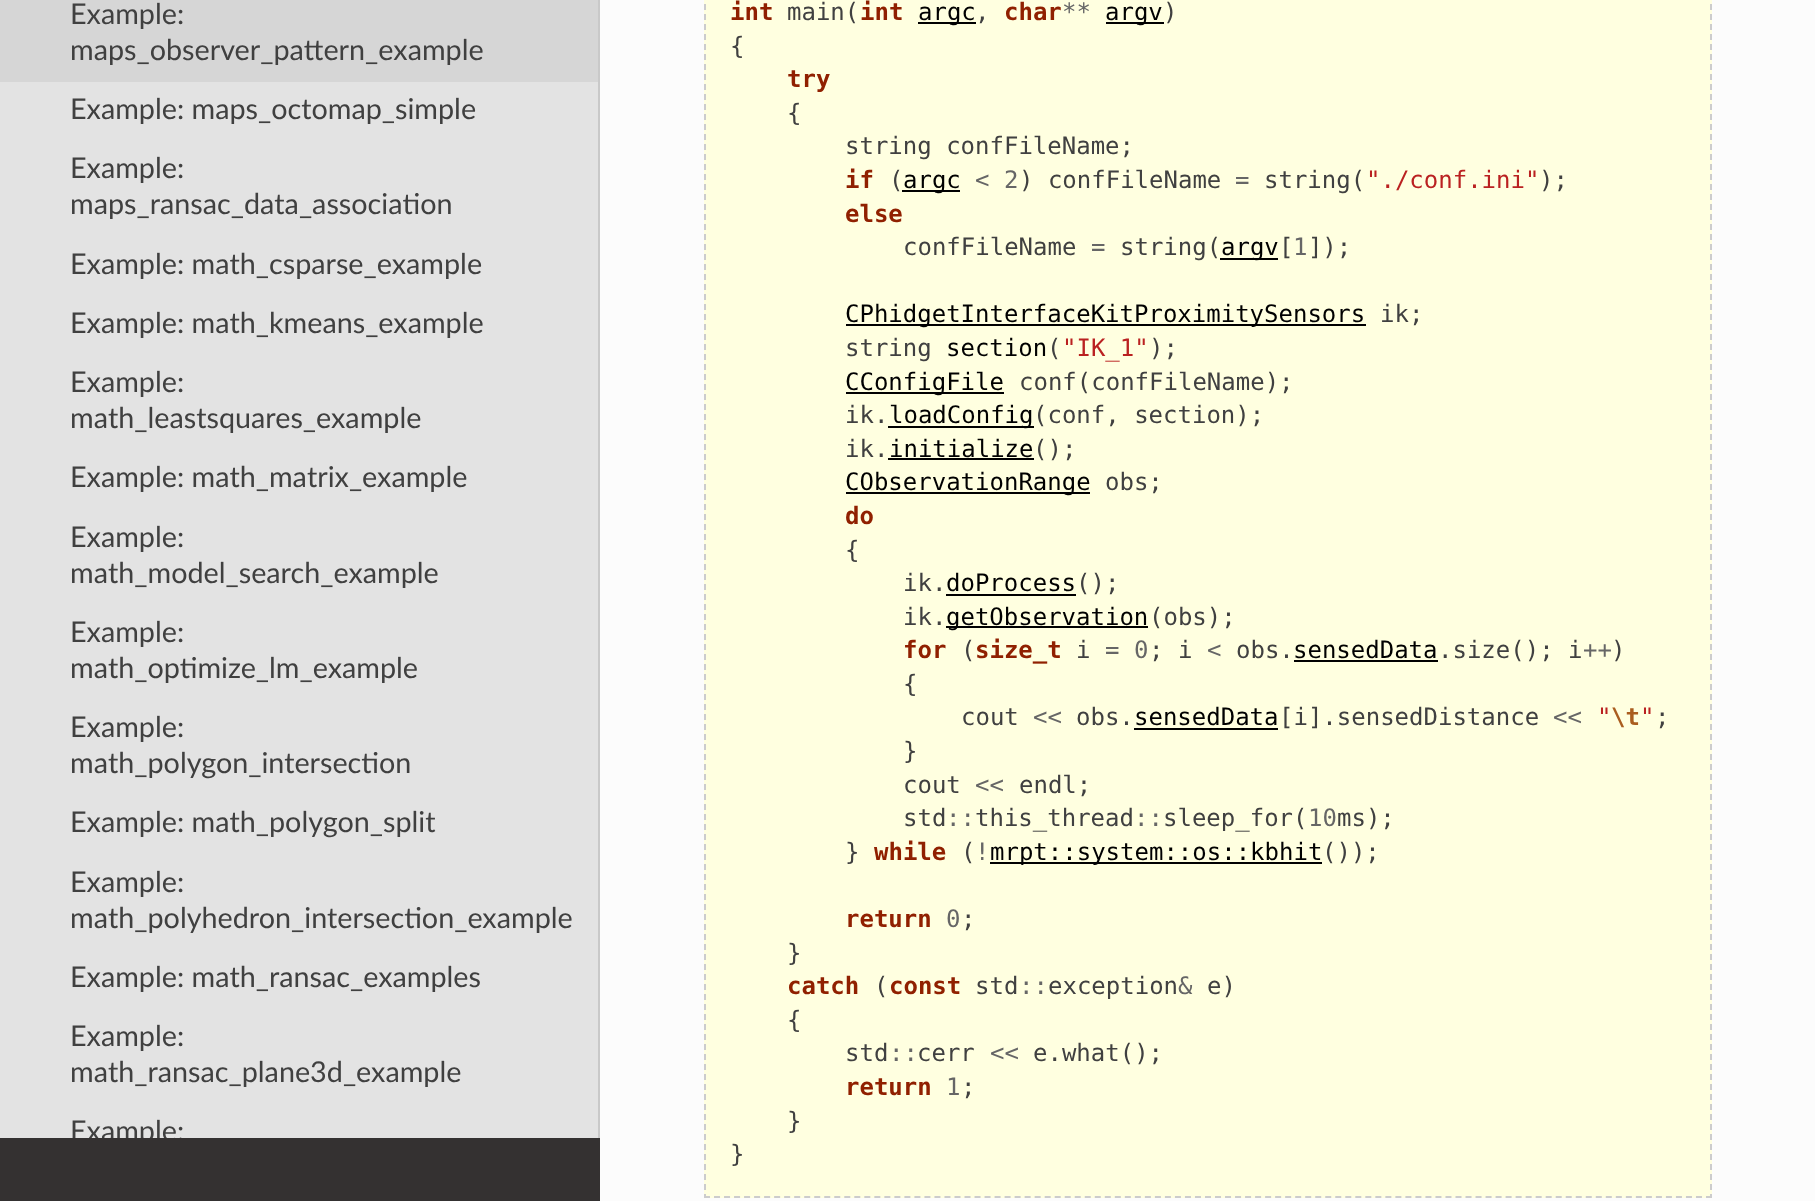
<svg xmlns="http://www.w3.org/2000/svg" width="1815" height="1201">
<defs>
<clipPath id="clip1"><rect width="600" height="1138"/></clipPath>
</defs>
<rect width="100%" height="100%" fill="#fcfcfc"/>
<rect y="1138" width="600" height="63" fill="#343131"/>
<rect y="82" width="598" height="1056" fill="#e3e3e3"/>
<rect width="598" height="82" fill="#d6d6d6"/>
<rect x="598" width="2" height="1138" fill="#c9c9c9"/>
<text x="70" y="24" style="font-family:Lato;font-size:28.75px;fill:#404040">Example:</text>
<text x="70" y="60" style="font-family:Lato;font-size:28.75px;fill:#404040">maps_observer_pattern_example</text>
<text x="70" y="119" style="font-family:Lato;font-size:28.75px;fill:#404040">Example: maps_octomap_simple</text>
<text x="70" y="178" style="font-family:Lato;font-size:28.75px;fill:#404040">Example:</text>
<text x="70" y="214" style="font-family:Lato;font-size:28.75px;fill:#404040">maps_ransac_data_association</text>
<text x="70" y="274" style="font-family:Lato;font-size:28.75px;fill:#404040">Example: math_csparse_example</text>
<text x="70" y="333" style="font-family:Lato;font-size:28.75px;fill:#404040">Example: math_kmeans_example</text>
<text x="70" y="392" style="font-family:Lato;font-size:28.75px;fill:#404040">Example:</text>
<text x="70" y="428" style="font-family:Lato;font-size:28.75px;fill:#404040">math_leastsquares_example</text>
<text x="70" y="487" style="font-family:Lato;font-size:28.75px;fill:#404040">Example: math_matrix_example</text>
<text x="70" y="547" style="font-family:Lato;font-size:28.75px;fill:#404040">Example:</text>
<text x="70" y="583" style="font-family:Lato;font-size:28.75px;fill:#404040">math_model_search_example</text>
<text x="70" y="642" style="font-family:Lato;font-size:28.75px;fill:#404040">Example:</text>
<text x="70" y="678" style="font-family:Lato;font-size:28.75px;fill:#404040">math_optimize_lm_example</text>
<text x="70" y="737" style="font-family:Lato;font-size:28.75px;fill:#404040">Example:</text>
<text x="70" y="773" style="font-family:Lato;font-size:28.75px;fill:#404040">math_polygon_intersection</text>
<text x="70" y="832" style="font-family:Lato;font-size:28.75px;fill:#404040">Example: math_polygon_split</text>
<text x="70" y="892" style="font-family:Lato;font-size:28.75px;fill:#404040">Example:</text>
<text x="70" y="928" style="font-family:Lato;font-size:28.75px;fill:#404040">math_polyhedron_intersection_example</text>
<text x="70" y="987" style="font-family:Lato;font-size:28.75px;fill:#404040">Example: math_ransac_examples</text>
<text x="70" y="1046" style="font-family:Lato;font-size:28.75px;fill:#404040">Example:</text>
<text x="70" y="1082" style="font-family:Lato;font-size:28.75px;fill:#404040">math_ransac_plane3d_example</text>
<g clip-path="url(#clip1)">
<text x="70" y="1141" style="font-family:Lato;font-size:28.75px;fill:#404040">Example:</text>
</g>
<rect x="704" width="1008" height="1198" fill="#ffffe0"/>
<path d="M1711-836v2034" fill="none" stroke="#ccc" stroke-width="2" stroke-dasharray="6 4"/>
<path d="M704 1197h1008" fill="none" stroke="#ccc" stroke-width="2" stroke-dasharray="6 4.02"/>
<path d="M705-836v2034" fill="none" stroke="#ccc" stroke-width="2" stroke-dasharray="6 4"/>
<text x="730" y="20" style="font-family:DejaVu Sans Mono;font-size:24px;font-weight:bold;fill:#902000">int</text>
<text x="787" y="20" style="font-family:DejaVu Sans Mono;font-size:24px;fill:#404040">main(</text>
<text x="860" y="20" style="font-family:DejaVu Sans Mono;font-size:24px;font-weight:bold;fill:#902000">int</text>
<rect x="918" y="22" width="58" height="2" fill="#000"/>
<text x="918" y="20" style="font-family:DejaVu Sans Mono;font-size:24px;fill:#000">argc</text>
<text x="975" y="20" style="font-family:DejaVu Sans Mono;font-size:24px;fill:#404040">,</text>
<text x="1004" y="20" style="font-family:DejaVu Sans Mono;font-size:24px;font-weight:bold;fill:#902000">char</text>
<text x="1062" y="20" style="font-family:DejaVu Sans Mono;font-size:24px;fill:#666">**</text>
<rect x="1106" y="22" width="58" height="2" fill="#000"/>
<text x="1105" y="20" style="font-family:DejaVu Sans Mono;font-size:24px;fill:#000">argv</text>
<text x="1163" y="20" style="font-family:DejaVu Sans Mono;font-size:24px;fill:#404040">)</text>
<text x="730" y="54" style="font-family:DejaVu Sans Mono;font-size:24px;fill:#404040">{</text>
<text x="787" y="87" style="font-family:DejaVu Sans Mono;font-size:24px;font-weight:bold;fill:#902000">try</text>
<text x="787" y="121" style="font-family:DejaVu Sans Mono;font-size:24px;fill:#404040">{</text>
<text x="845" y="154" style="font-family:DejaVu Sans Mono;font-size:24px;fill:#404040">string confFileName;</text>
<text x="845" y="188" style="font-family:DejaVu Sans Mono;font-size:24px;font-weight:bold;fill:#902000">if</text>
<text x="889" y="188" style="font-family:DejaVu Sans Mono;font-size:24px;fill:#404040">(</text>
<rect x="902" y="190" width="58" height="2" fill="#000"/>
<text x="903" y="188" style="font-family:DejaVu Sans Mono;font-size:24px;fill:#000">argc</text>
<text x="975" y="188" style="font-family:DejaVu Sans Mono;font-size:24px;fill:#666">&lt; 2</text>
<text x="1019" y="188" style="font-family:DejaVu Sans Mono;font-size:24px;fill:#404040">) confFileName</text>
<text x="1235" y="188" style="font-family:DejaVu Sans Mono;font-size:24px;fill:#666">=</text>
<text x="1264" y="188" style="font-family:DejaVu Sans Mono;font-size:24px;fill:#404040">string(</text>
<text x="1366" y="188" style="font-family:DejaVu Sans Mono;font-size:24px;fill:#ba2121">"./conf.ini"</text>
<text x="1539" y="188" style="font-family:DejaVu Sans Mono;font-size:24px;fill:#404040">);</text>
<text x="845" y="222" style="font-family:DejaVu Sans Mono;font-size:24px;font-weight:bold;fill:#902000">else</text>
<text x="903" y="255" style="font-family:DejaVu Sans Mono;font-size:24px;fill:#404040">confFileName</text>
<text x="1120" y="255" style="font-family:DejaVu Sans Mono;font-size:24px;fill:#404040">string(</text>
<text x="1279" y="255" style="font-family:DejaVu Sans Mono;font-size:24px;fill:#404040">[ ]);</text>
<text x="1091" y="255" style="font-family:DejaVu Sans Mono;font-size:24px;fill:#666">=</text>
<rect x="1220" y="258" width="58" height="2" fill="#000"/>
<text x="1221" y="255" style="font-family:DejaVu Sans Mono;font-size:24px;fill:#000">argv</text>
<text x="1293" y="255" style="font-family:DejaVu Sans Mono;font-size:24px;fill:#666">1</text>
<rect x="846" y="324" width="520" height="2" fill="#000"/>
<text x="845" y="322" style="font-family:DejaVu Sans Mono;font-size:24px;fill:#000">CPhidgetInterfaceKitProximitySensors</text>
<text x="1380" y="322" style="font-family:DejaVu Sans Mono;font-size:24px;fill:#404040">ik;</text>
<text x="845" y="356" style="font-family:DejaVu Sans Mono;font-size:24px;fill:#404040">string</text>
<text x="946" y="356" style="font-family:DejaVu Sans Mono;font-size:24px;fill:#000">section</text>
<text x="1047" y="356" style="font-family:DejaVu Sans Mono;font-size:24px;fill:#404040">(</text>
<text x="1062" y="356" style="font-family:DejaVu Sans Mono;font-size:24px;fill:#ba2121">"IK_1"</text>
<text x="1149" y="356" style="font-family:DejaVu Sans Mono;font-size:24px;fill:#404040">);</text>
<rect x="846" y="392" width="158" height="2" fill="#000"/>
<text x="845" y="390" style="font-family:DejaVu Sans Mono;font-size:24px;fill:#000">CConfigFile</text>
<text x="1019" y="390" style="font-family:DejaVu Sans Mono;font-size:24px;fill:#404040">conf(confFileName);</text>
<text x="845" y="423" style="font-family:DejaVu Sans Mono;font-size:24px;fill:#404040">ik.</text>
<rect x="888" y="426" width="146" height="2" fill="#000"/>
<text x="889" y="423" style="font-family:DejaVu Sans Mono;font-size:24px;fill:#000">loadConfig</text>
<text x="1033" y="423" style="font-family:DejaVu Sans Mono;font-size:24px;fill:#404040">(conf, section);</text>
<text x="845" y="457" style="font-family:DejaVu Sans Mono;font-size:24px;fill:#404040">ik.</text>
<text x="889" y="457" style="font-family:DejaVu Sans Mono;font-size:24px;fill:#000">initialize</text>
<rect x="888" y="458" width="146" height="2" fill="#000"/>
<text x="1033" y="457" style="font-family:DejaVu Sans Mono;font-size:24px;fill:#404040">();</text>
<rect x="846" y="492" width="244" height="2" fill="#000"/>
<text x="845" y="490" style="font-family:DejaVu Sans Mono;font-size:24px;fill:#000">CObservationRange</text>
<text x="1105" y="490" style="font-family:DejaVu Sans Mono;font-size:24px;fill:#404040">obs;</text>
<text x="845" y="524" style="font-family:DejaVu Sans Mono;font-size:24px;font-weight:bold;fill:#902000">do</text>
<text x="845" y="558" style="font-family:DejaVu Sans Mono;font-size:24px;fill:#404040">{</text>
<text x="903" y="591" style="font-family:DejaVu Sans Mono;font-size:24px;fill:#404040">ik.</text>
<text x="946" y="591" style="font-family:DejaVu Sans Mono;font-size:24px;fill:#000">doProcess</text>
<rect x="946" y="594" width="130" height="2" fill="#000"/>
<text x="1076" y="591" style="font-family:DejaVu Sans Mono;font-size:24px;fill:#404040">();</text>
<text x="903" y="625" style="font-family:DejaVu Sans Mono;font-size:24px;fill:#404040">ik.</text>
<rect x="946" y="626" width="202" height="2" fill="#000"/>
<text x="946" y="625" style="font-family:DejaVu Sans Mono;font-size:24px;fill:#000">getObservation</text>
<text x="1149" y="625" style="font-family:DejaVu Sans Mono;font-size:24px;fill:#404040">(obs);</text>
<text x="903" y="658" style="font-family:DejaVu Sans Mono;font-size:24px;font-weight:bold;fill:#902000">for</text>
<text x="961" y="658" style="font-family:DejaVu Sans Mono;font-size:24px;fill:#404040">(</text>
<text x="975" y="658" style="font-family:DejaVu Sans Mono;font-size:24px;font-weight:bold;fill:#902000">size_t</text>
<text x="1076" y="658" style="font-family:DejaVu Sans Mono;font-size:24px;fill:#404040">i</text>
<text x="1105" y="658" style="font-family:DejaVu Sans Mono;font-size:24px;fill:#666">= 0</text>
<text x="1149" y="658" style="font-family:DejaVu Sans Mono;font-size:24px;fill:#404040">; i</text>
<text x="1207" y="658" style="font-family:DejaVu Sans Mono;font-size:24px;fill:#666">&lt;</text>
<text x="1236" y="658" style="font-family:DejaVu Sans Mono;font-size:24px;fill:#404040">obs.</text>
<text x="1293" y="658" style="font-family:DejaVu Sans Mono;font-size:24px;fill:#000">sensedData</text>
<rect x="1294" y="660" width="144" height="2" fill="#000"/>
<text x="1438" y="658" style="font-family:DejaVu Sans Mono;font-size:24px;fill:#404040">.size(); i</text>
<text x="1583" y="658" style="font-family:DejaVu Sans Mono;font-size:24px;fill:#666">++</text>
<text x="1611" y="658" style="font-family:DejaVu Sans Mono;font-size:24px;fill:#404040">)</text>
<text x="903" y="692" style="font-family:DejaVu Sans Mono;font-size:24px;fill:#404040">{</text>
<text x="961" y="725" style="font-family:DejaVu Sans Mono;font-size:24px;fill:#404040">cout</text>
<text x="1033" y="725" style="font-family:DejaVu Sans Mono;font-size:24px;fill:#666">&lt;&lt;</text>
<text x="1076" y="725" style="font-family:DejaVu Sans Mono;font-size:24px;fill:#404040">obs.</text>
<text x="1134" y="725" style="font-family:DejaVu Sans Mono;font-size:24px;fill:#000">sensedData</text>
<rect x="1134" y="728" width="144" height="2" fill="#000"/>
<text x="1279" y="725" style="font-family:DejaVu Sans Mono;font-size:24px;fill:#404040">[i].sensedDistance</text>
<text x="1553" y="725" style="font-family:DejaVu Sans Mono;font-size:24px;fill:#666">&lt;&lt;</text>
<text x="1597" y="725" style="font-family:DejaVu Sans Mono;font-size:24px;fill:#ba2121">"</text>
<text x="1611" y="725" style="font-family:DejaVu Sans Mono;font-size:24px;font-weight:bold;fill:#aa5d1f">\t</text>
<text x="1640" y="725" style="font-family:DejaVu Sans Mono;font-size:24px;fill:#ba2121">"</text>
<text x="1655" y="725" style="font-family:DejaVu Sans Mono;font-size:24px;fill:#404040">;</text>
<text x="903" y="759" style="font-family:DejaVu Sans Mono;font-size:24px;fill:#404040">}</text>
<text x="903" y="793" style="font-family:DejaVu Sans Mono;font-size:24px;fill:#404040">cout</text>
<text x="975" y="793" style="font-family:DejaVu Sans Mono;font-size:24px;fill:#666">&lt;&lt;</text>
<text x="1019" y="793" style="font-family:DejaVu Sans Mono;font-size:24px;fill:#404040">endl;</text>
<text x="903" y="826" style="font-family:DejaVu Sans Mono;font-size:24px;fill:#404040">std</text>
<text x="946" y="826" style="font-family:DejaVu Sans Mono;font-size:24px;fill:#666">::</text>
<text x="975" y="826" style="font-family:DejaVu Sans Mono;font-size:24px;fill:#404040">this_thread</text>
<text x="1134" y="826" style="font-family:DejaVu Sans Mono;font-size:24px;fill:#666">::</text>
<text x="1163" y="826" style="font-family:DejaVu Sans Mono;font-size:24px;fill:#404040">sleep_for(</text>
<text x="1308" y="826" style="font-family:DejaVu Sans Mono;font-size:24px;fill:#666">10</text>
<text x="1337" y="826" style="font-family:DejaVu Sans Mono;font-size:24px;fill:#404040">ms);</text>
<text x="845" y="860" style="font-family:DejaVu Sans Mono;font-size:24px;fill:#404040">}</text>
<text x="874" y="860" style="font-family:DejaVu Sans Mono;font-size:24px;font-weight:bold;fill:#902000">while</text>
<text x="961" y="860" style="font-family:DejaVu Sans Mono;font-size:24px;fill:#404040">(</text>
<text x="975" y="860" style="font-family:DejaVu Sans Mono;font-size:24px;fill:#666">!</text>
<rect x="990" y="862" width="332" height="2" fill="#000"/>
<text x="990" y="860" style="font-family:DejaVu Sans Mono;font-size:24px;fill:#000">mrpt::system::os::kbhit</text>
<text x="1322" y="860" style="font-family:DejaVu Sans Mono;font-size:24px;fill:#404040">());</text>
<text x="845" y="927" style="font-family:DejaVu Sans Mono;font-size:24px;font-weight:bold;fill:#902000">return</text>
<text x="946" y="927" style="font-family:DejaVu Sans Mono;font-size:24px;fill:#666">0</text>
<text x="961" y="927" style="font-family:DejaVu Sans Mono;font-size:24px;fill:#404040">;</text>
<text x="787" y="961" style="font-family:DejaVu Sans Mono;font-size:24px;fill:#404040">}</text>
<text x="787" y="994" style="font-family:DejaVu Sans Mono;font-size:24px;font-weight:bold;fill:#902000">catch</text>
<text x="874" y="994" style="font-family:DejaVu Sans Mono;font-size:24px;fill:#404040">(</text>
<text x="889" y="994" style="font-family:DejaVu Sans Mono;font-size:24px;font-weight:bold;fill:#902000">const</text>
<text x="975" y="994" style="font-family:DejaVu Sans Mono;font-size:24px;fill:#404040">std</text>
<text x="1019" y="994" style="font-family:DejaVu Sans Mono;font-size:24px;fill:#666">::</text>
<text x="1048" y="994" style="font-family:DejaVu Sans Mono;font-size:24px;fill:#404040">exception</text>
<text x="1178" y="994" style="font-family:DejaVu Sans Mono;font-size:24px;fill:#666">&amp;</text>
<text x="1207" y="994" style="font-family:DejaVu Sans Mono;font-size:24px;fill:#404040">e)</text>
<text x="787" y="1028" style="font-family:DejaVu Sans Mono;font-size:24px;fill:#404040">{</text>
<text x="845" y="1061" style="font-family:DejaVu Sans Mono;font-size:24px;fill:#404040">std</text>
<text x="889" y="1061" style="font-family:DejaVu Sans Mono;font-size:24px;fill:#666">::</text>
<text x="917" y="1061" style="font-family:DejaVu Sans Mono;font-size:24px;fill:#404040">cerr</text>
<text x="990" y="1061" style="font-family:DejaVu Sans Mono;font-size:24px;fill:#666">&lt;&lt;</text>
<text x="1033" y="1061" style="font-family:DejaVu Sans Mono;font-size:24px;fill:#404040">e.what();</text>
<text x="845" y="1095" style="font-family:DejaVu Sans Mono;font-size:24px;font-weight:bold;fill:#902000">return</text>
<text x="946" y="1095" style="font-family:DejaVu Sans Mono;font-size:24px;fill:#666">1</text>
<text x="961" y="1095" style="font-family:DejaVu Sans Mono;font-size:24px;fill:#404040">;</text>
<text x="787" y="1129" style="font-family:DejaVu Sans Mono;font-size:24px;fill:#404040">}</text>
<text x="730" y="1162" style="font-family:DejaVu Sans Mono;font-size:24px;fill:#404040">}</text>
</svg>
